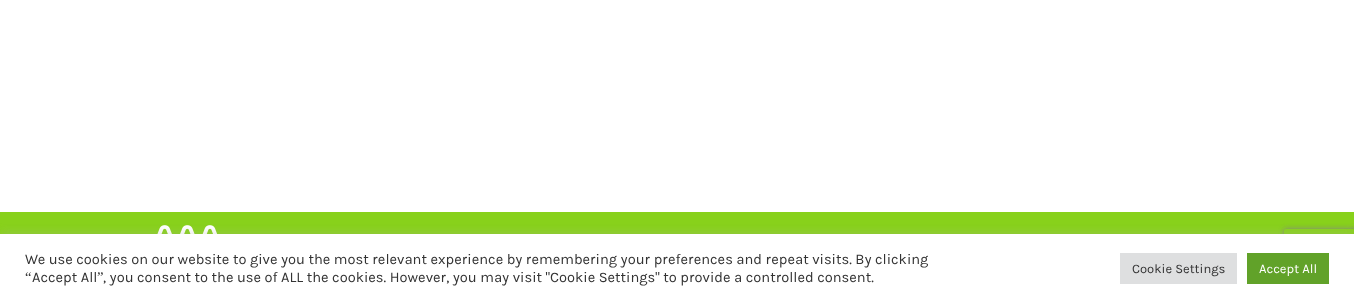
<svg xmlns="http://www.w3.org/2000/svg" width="1354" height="303">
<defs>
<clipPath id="clip1"><path d="M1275 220h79v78h-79zm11 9h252c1 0 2 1 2 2v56c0 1-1 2-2 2h-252c-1 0-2-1-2-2v-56c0-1 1-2 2-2z" clip-rule="evenodd"/></clipPath>
</defs>
<rect width="100%" height="100%" fill="#fff"/>
<rect y="212" width="1354" height="22" fill="#88d11b"/>
<image x="157" y="225" width="60" height="9" href="media/1.png"/>
<g clip-path="url(#clip1)">
<rect x="1284" y="229" width="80" height="60" rx="2" fill="#808080" filter="blur(2.5px)"/>
</g>
<rect y="233" width="1354" height="69" fill="#acabab4d" filter="blur(5px)"/>
<rect y="234" width="1354" height="69" fill="#fff"/>
<text x="25" y="264" style="font-family:Karla;font-size:14.67px;fill:#333">We use cookies on our website to give you the most relevant experience by remembering your preferences and repeat visits. By clicking</text>
<text x="25" y="282" style="font-family:Liberation Serif;font-size:14.67px;fill:#333">“</text>
<text x="32" y="282" style="font-family:Karla;font-size:14.67px;fill:#333">Accept All</text>
<text x="97" y="282" style="font-family:Liberation Serif;font-size:14.67px;fill:#333">”</text>
<text x="103" y="282" style="font-family:Karla;font-size:14.67px;fill:#333">, you consent to the use of ALL the cookies. However, you may visit "Cookie Settings" to provide a controlled consent.</text>
<rect x="1120" y="253" width="117" height="31" fill="#dedfe0"/>
<text x="1132" y="273" style="font-family:Karla;font-size:13px;fill:#333">Cookie Settings</text>
<rect x="1247" y="253" width="82" height="31" fill="#61a229"/>
<text x="1259" y="273" style="font-family:Karla;font-size:13px;fill:#fff">Accept All</text>
</svg>
